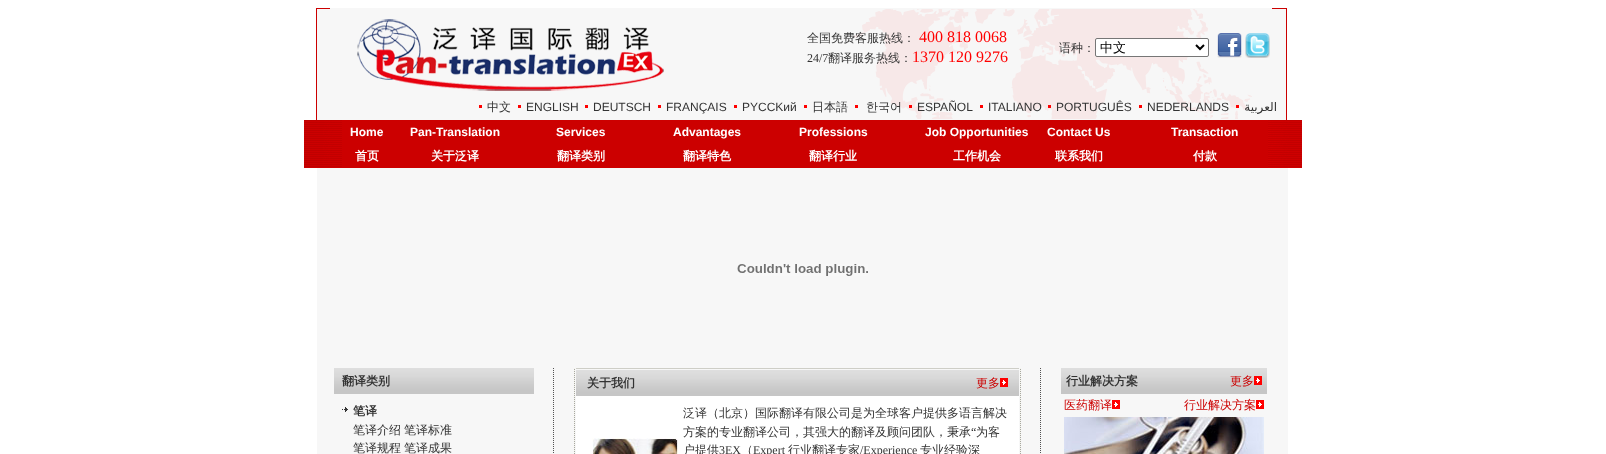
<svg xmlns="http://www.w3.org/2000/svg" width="1606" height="454">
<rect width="100%" height="100%" fill="#fff"/>
<image x="316" y="8" width="971" height="112" href="media/1.png"/>
<image x="357" y="19" width="307" height="72" href="media/2.png"/>
<text x="807" y="42" style="font-family:WenQuanYi Zen Hei;font-size:12px;font-weight:500;fill:#333">全国免费客服热线：</text>
<text x="919" y="42" style="font-family:Liberation Serif;font-size:16px;fill:#f00">400 818 0068</text>
<text x="807" y="62" style="font-family:Liberation Serif;font-size:12px;fill:#333">24/7</text>
<text x="828" y="62" style="font-family:WenQuanYi Zen Hei;font-size:12px;font-weight:500;fill:#333">翻译服务热线：</text>
<text x="912" y="62" style="font-family:Liberation Serif;font-size:16px;fill:#f00">1370 120 9276</text>
<text x="1059" y="52" style="font-family:WenQuanYi Zen Hei;font-size:12px;font-weight:500;fill:#333">语种：</text>
<rect x="1095.5" y="38.5" width="113" height="18" rx="1.5" fill="#fff" stroke="#767676"/>
<path d="M1196 45l4 4l4-4" fill="none" stroke="#000" stroke-width="2"/>
<text x="1100" y="52" style="font-family:WenQuanYi Zen Hei;font-size:13px;font-weight:500;fill:#000">中文</text>
<image x="1217" y="33" width="25" height="25" href="media/3.png"/>
<image x="1245" y="33" width="25" height="25" href="media/4.png"/>
<rect x="479" y="105" width="3" height="3" fill="#f00"/>
<text x="487" y="111" style="font-family:WenQuanYi Zen Hei;font-size:12px;font-weight:500;fill:#333">中文</text>
<rect x="518" y="105" width="3" height="3" fill="#f00"/>
<text x="526" y="111" style="font-family:Liberation Sans;font-size:12px;fill:#333">ENGLISH</text>
<rect x="585" y="105" width="3" height="3" fill="#f00"/>
<text x="593" y="111" style="font-family:Liberation Sans;font-size:12px;fill:#333">DEUTSCH</text>
<rect x="658" y="105" width="3" height="3" fill="#f00"/>
<text x="666" y="111" style="font-family:Liberation Sans;font-size:12px;fill:#333">FRANÇAIS</text>
<rect x="734" y="105" width="3" height="3" fill="#f00"/>
<text x="742" y="111" style="font-family:Liberation Sans;font-size:12px;fill:#333">РYCCKий</text>
<rect x="804" y="105" width="3" height="3" fill="#f00"/>
<text x="812" y="111" style="font-family:WenQuanYi Zen Hei;font-size:12px;font-weight:500;fill:#333">日本語</text>
<rect x="855" y="105" width="3" height="3" fill="#f00"/>
<text x="866" y="111" style="font-family:WenQuanYi Zen Hei;font-size:12px;font-weight:500;fill:#333">한국어</text>
<rect x="909" y="105" width="3" height="3" fill="#f00"/>
<text x="917" y="111" style="font-family:Liberation Sans;font-size:12px;fill:#333">ESPAÑOL</text>
<rect x="980" y="105" width="3" height="3" fill="#f00"/>
<text x="988" y="111" style="font-family:Liberation Sans;font-size:12px;fill:#333">ITALIANO</text>
<rect x="1048" y="105" width="3" height="3" fill="#f00"/>
<text x="1056" y="111" style="font-family:Liberation Sans;font-size:12px;fill:#333">PORTUGUÊS</text>
<rect x="1139" y="105" width="3" height="3" fill="#f00"/>
<text x="1147" y="111" style="font-family:Liberation Sans;font-size:12px;fill:#333">NEDERLANDS</text>
<rect x="1236" y="105" width="3" height="3" fill="#f00"/>
<text x="1277" y="111" style="font-family:DejaVu Sans;font-size:12px;direction:rtl;fill:#333">العربية</text>
<image x="304" y="120" width="38" height="48" href="media/5.png"/>
<image x="1268" y="120" width="34" height="48" href="media/6.png"/>
<rect x="342" y="120" width="926" height="48" fill="#c00"/>
<text x="350" y="136" style="font-family:Liberation Sans;font-size:12px;font-weight:bold;fill:#fff">Home</text>
<text x="355" y="160" style="font-family:WenQuanYi Zen Hei;font-size:12px;font-weight:bold;fill:#fff">首页</text>
<text x="410" y="136" style="font-family:Liberation Sans;font-size:12px;font-weight:bold;fill:#fff">Pan-Translation</text>
<text x="431" y="160" style="font-family:WenQuanYi Zen Hei;font-size:12px;font-weight:bold;fill:#fff">关于泛译</text>
<text x="556" y="136" style="font-family:Liberation Sans;font-size:12px;font-weight:bold;fill:#fff">Services</text>
<text x="557" y="160" style="font-family:WenQuanYi Zen Hei;font-size:12px;font-weight:bold;fill:#fff">翻译类别</text>
<text x="673" y="136" style="font-family:Liberation Sans;font-size:12px;font-weight:bold;fill:#fff">Advantages</text>
<text x="683" y="160" style="font-family:WenQuanYi Zen Hei;font-size:12px;font-weight:bold;fill:#fff">翻译特色</text>
<text x="799" y="136" style="font-family:Liberation Sans;font-size:12px;font-weight:bold;fill:#fff">Professions</text>
<text x="809" y="160" style="font-family:WenQuanYi Zen Hei;font-size:12px;font-weight:bold;fill:#fff">翻译行业</text>
<text x="925" y="136" style="font-family:Liberation Sans;font-size:12px;font-weight:bold;fill:#fff">Job Opportunities</text>
<text x="953" y="160" style="font-family:WenQuanYi Zen Hei;font-size:12px;font-weight:bold;fill:#fff">工作机会</text>
<text x="1047" y="136" style="font-family:Liberation Sans;font-size:12px;font-weight:bold;fill:#fff">Contact Us</text>
<text x="1055" y="160" style="font-family:WenQuanYi Zen Hei;font-size:12px;font-weight:bold;fill:#fff">联系我们</text>
<text x="1171" y="136" style="font-family:Liberation Sans;font-size:12px;font-weight:bold;fill:#fff">Transaction</text>
<text x="1193" y="160" style="font-family:WenQuanYi Zen Hei;font-size:12px;font-weight:bold;fill:#fff">付款</text>
<rect x="317" y="168" width="971" height="286" fill="#f7f7f7"/>
<image x="737" y="264" width="131" height="12" href="media/7.png"/>
<image x="334" y="368" width="200" height="26" href="media/8.png"/>
<text x="342" y="385" style="font-family:WenQuanYi Zen Hei;font-size:12px;font-weight:bold;fill:#333">翻译类别</text>
<image x="342" y="407" width="6" height="5" href="media/9.png"/>
<text x="353" y="415" style="font-family:WenQuanYi Zen Hei;font-size:12px;font-weight:bold;fill:#333">笔译</text>
<text x="353" y="434" style="font-family:WenQuanYi Zen Hei;font-size:12px;font-weight:500;fill:#333">笔译介绍</text>
<text x="404" y="434" style="font-family:WenQuanYi Zen Hei;font-size:12px;font-weight:500;fill:#333">笔译标准</text>
<text x="353" y="452" style="font-family:WenQuanYi Zen Hei;font-size:12px;font-weight:500;fill:#333">笔译规程</text>
<text x="404" y="452" style="font-family:WenQuanYi Zen Hei;font-size:12px;font-weight:500;fill:#333">笔译成果</text>
<image x="553" y="368" width="1" height="85" href="media/10.png"/>
<image x="574" y="368" width="1" height="86" href="media/11.png"/>
<rect x="576" y="368" width="443" height="1" fill="#cecec7"/>
<image x="576" y="370" width="443" height="26" href="media/12.png"/>
<text x="587" y="387" style="font-family:WenQuanYi Zen Hei;font-size:12px;font-weight:bold;fill:#333">关于我们</text>
<text x="976" y="387" style="font-family:WenQuanYi Zen Hei;font-size:12px;font-weight:500;fill:#c00">更多</text>
<image x="1000" y="378" width="8" height="9" href="media/13.png"/>
<rect x="576" y="396" width="443" height="58" fill="#fff"/>
<image x="592" y="438" width="86" height="16" href="media/14.png"/>
<text x="683" y="417" style="font-family:WenQuanYi Zen Hei;font-size:12px;font-weight:500;fill:#333">泛译（北京）国际翻译有限公司是为全球客户提供多语言解决</text>
<text x="683" y="436" style="font-family:WenQuanYi Zen Hei;font-size:12px;font-weight:500;fill:#333">方案的专业翻译公司，其强大的翻译及顾问团队，秉承</text>
<text x="971" y="436" style="font-family:Liberation Serif;font-size:12px;fill:#333">“</text>
<text x="976" y="436" style="font-family:WenQuanYi Zen Hei;font-size:12px;font-weight:500;fill:#333">为客</text>
<text x="683" y="454" style="font-family:WenQuanYi Zen Hei;font-size:12px;font-weight:500;fill:#333">户提供</text>
<text x="719" y="454" style="font-family:Liberation Serif;font-size:12px;fill:#333">3EX</text>
<text x="741" y="454" style="font-family:WenQuanYi Zen Hei;font-size:12px;font-weight:500;fill:#333">（</text>
<text x="753" y="454" style="font-family:Liberation Serif;font-size:12px;fill:#333">Expert</text>
<text x="788" y="454" style="font-family:WenQuanYi Zen Hei;font-size:12px;font-weight:500;fill:#333">行业翻译专家</text>
<text x="860" y="454" style="font-family:Liberation Serif;font-size:12px;fill:#333">/Experience</text>
<text x="920" y="454" style="font-family:WenQuanYi Zen Hei;font-size:12px;font-weight:500;fill:#333">专业经验深</text>
<image x="1020" y="368" width="1" height="86" href="media/11.png"/>
<image x="1040" y="368" width="1" height="85" href="media/10.png"/>
<image x="1061" y="368" width="206" height="26" href="media/15.png"/>
<text x="1066" y="385" style="font-family:WenQuanYi Zen Hei;font-size:12px;font-weight:bold;fill:#333">行业解决方案</text>
<text x="1230" y="385" style="font-family:WenQuanYi Zen Hei;font-size:12px;font-weight:500;fill:#c00">更多</text>
<image x="1254" y="376" width="8" height="9" href="media/13.png"/>
<text x="1064" y="409" style="font-family:WenQuanYi Zen Hei;font-size:12px;font-weight:500;fill:#c00">医药翻译</text>
<image x="1112" y="400" width="8" height="9" href="media/13.png"/>
<text x="1184" y="409" style="font-family:WenQuanYi Zen Hei;font-size:12px;font-weight:500;fill:#c00">行业解决方案</text>
<image x="1256" y="400" width="8" height="9" href="media/13.png"/>
<image x="1064" y="417" width="200" height="37" href="media/16.png"/>
</svg>
